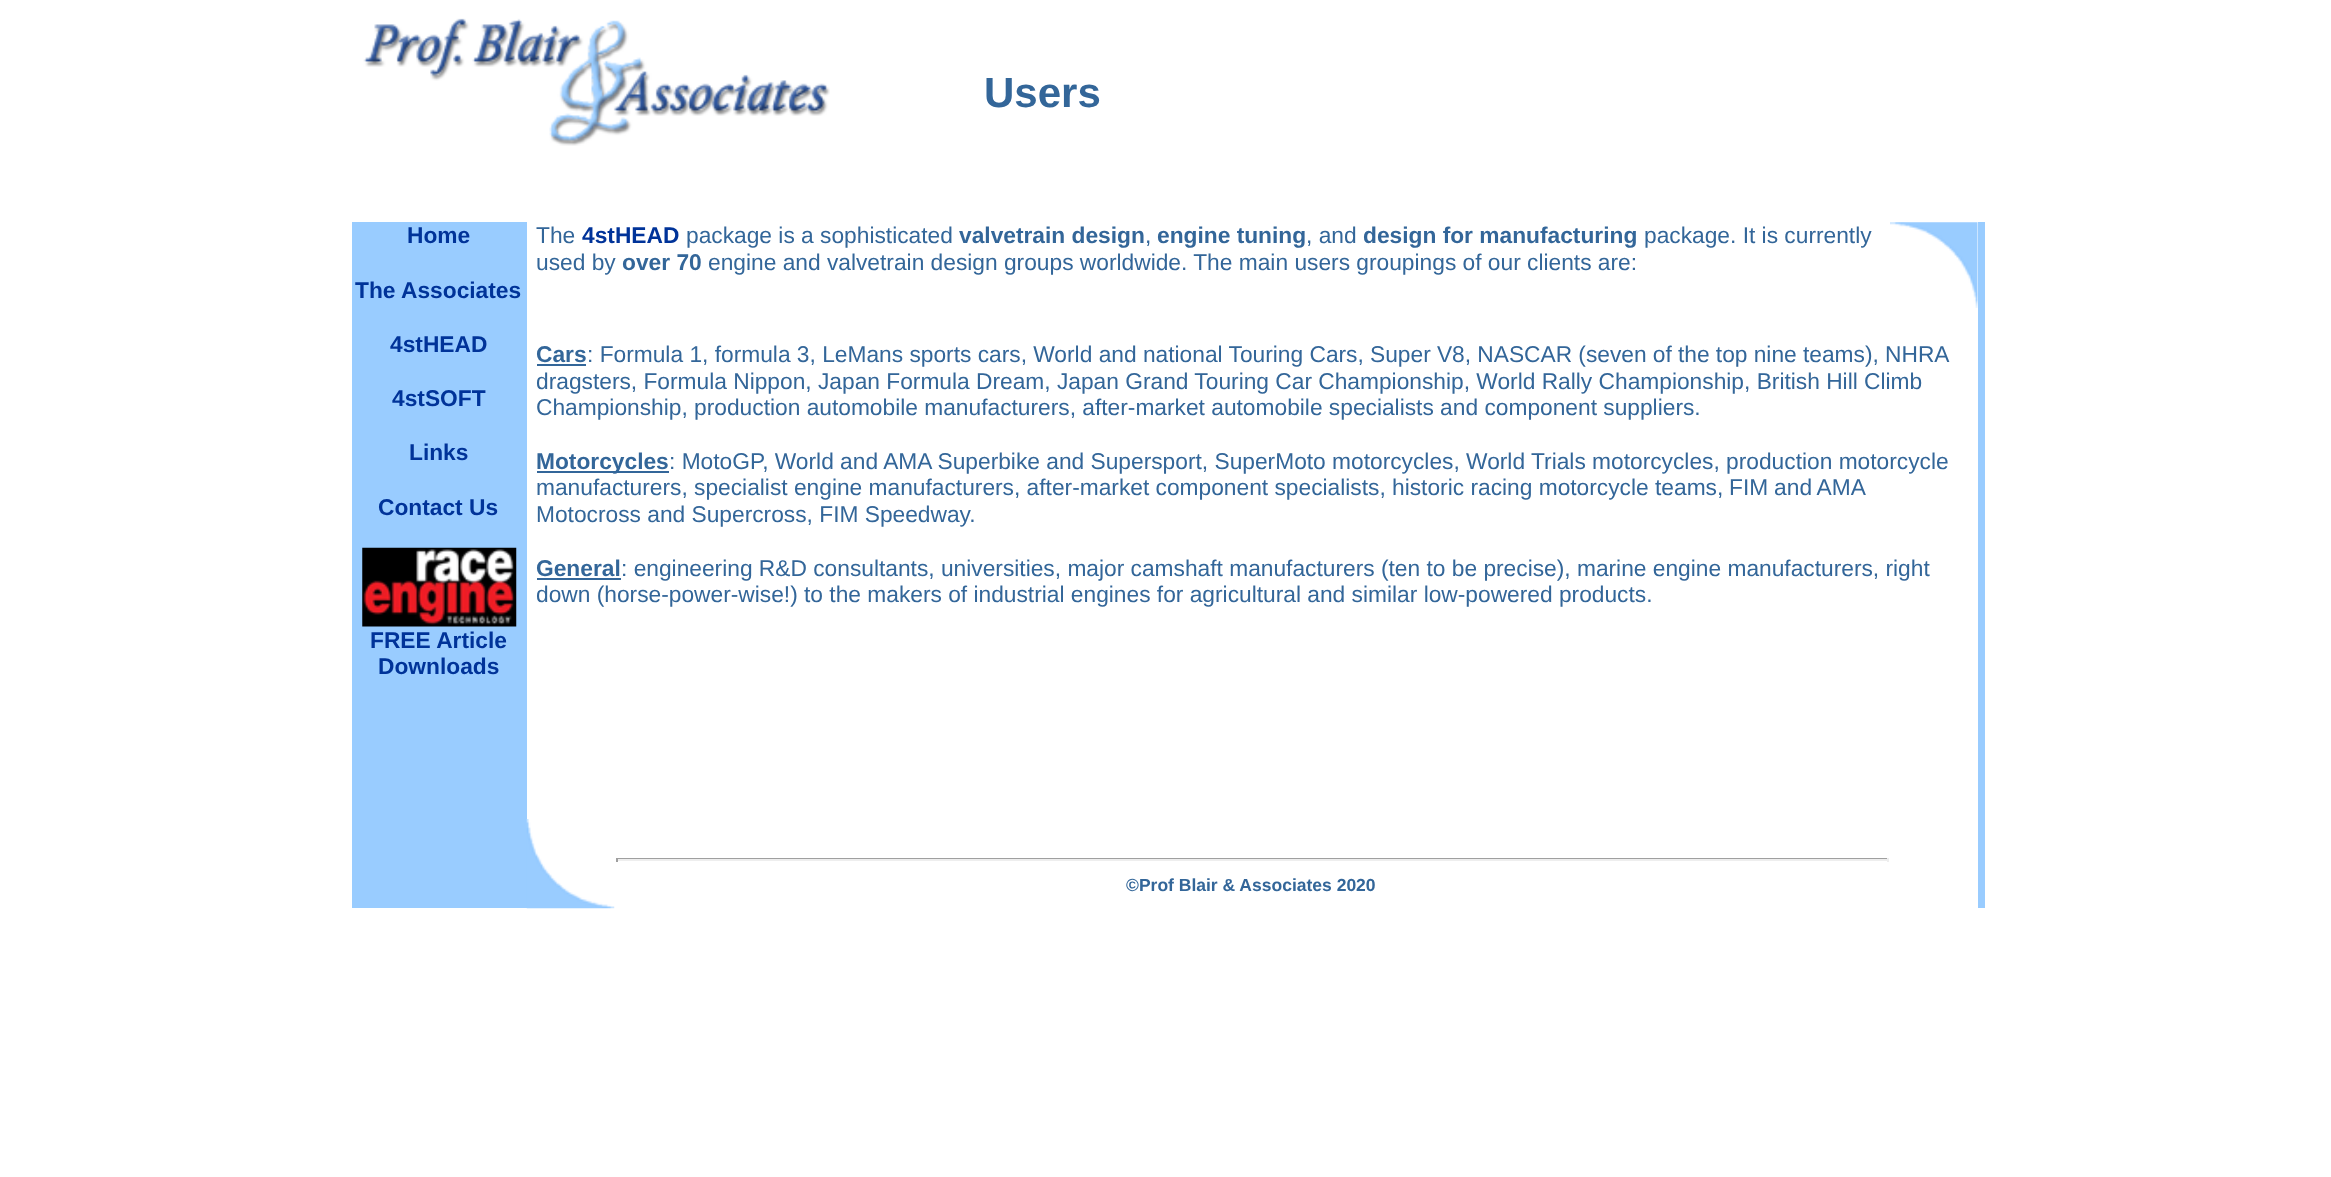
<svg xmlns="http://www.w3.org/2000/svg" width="2331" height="1177">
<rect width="100%" height="100%" fill="#fff"/>
<image x="363" y="18" width="467" height="128" href="media/1.png"/>
<text x="984" y="107" style="font-family:Liberation Sans;font-size:42px;font-weight:bold;fill:#369">Users</text>
<rect x="352" y="222" width="175" height="686" fill="#9cf"/>
<text x="407" y="243" style="font-family:Liberation Sans;font-size:22.75px;font-weight:bold;fill:#039">Home</text>
<text x="355" y="298" style="font-family:Liberation Sans;font-size:22.75px;font-weight:bold;fill:#039">The</text>
<text x="401" y="298" style="font-family:Liberation Sans;font-size:22.75px;font-weight:bold;fill:#039">Associates</text>
<text x="390" y="352" style="font-family:Liberation Sans;font-size:22.75px;font-weight:bold;fill:#039">4stHEAD</text>
<text x="392" y="406" style="font-family:Liberation Sans;font-size:22.75px;font-weight:bold;fill:#039">4stSOFT</text>
<text x="409" y="460" style="font-family:Liberation Sans;font-size:22.75px;font-weight:bold;fill:#039">Links</text>
<text x="378" y="515" style="font-family:Liberation Sans;font-size:22.75px;font-weight:bold;fill:#039">Contact Us</text>
<image x="362" y="547" width="155" height="80" href="media/2.png"/>
<text x="370" y="648" style="font-family:Liberation Sans;font-size:22.75px;font-weight:bold;fill:#039">FREE Article</text>
<text x="378" y="674" style="font-family:Liberation Sans;font-size:22.75px;font-weight:bold;fill:#039">Downloads</text>
<text x="536" y="243" style="font-family:Liberation Sans;font-size:22.75px;fill:#369">The</text>
<text x="582" y="243" style="font-family:Liberation Sans;font-size:22.75px;font-weight:bold;fill:#039">4stHEAD</text>
<text x="686" y="243" style="font-family:Liberation Sans;font-size:22.75px;fill:#369">package is a sophisticated</text>
<text x="959" y="243" style="font-family:Liberation Sans;font-size:22.75px;font-weight:bold;fill:#369">valvetrain design</text>
<text x="1145" y="243" style="font-family:Liberation Sans;font-size:22.75px;fill:#369">,</text>
<text x="1157" y="243" style="font-family:Liberation Sans;font-size:22.75px;font-weight:bold;fill:#369">engine tuning</text>
<text x="1306" y="243" style="font-family:Liberation Sans;font-size:22.75px;fill:#369">, and</text>
<text x="1363" y="243" style="font-family:Liberation Sans;font-size:22.75px;font-weight:bold;fill:#369">design for manufacturing</text>
<text x="1644" y="243" style="font-family:Liberation Sans;font-size:22.75px;fill:#369">package. It is currently</text>
<text x="536" y="270" style="font-family:Liberation Sans;font-size:22.75px;fill:#369">used by</text>
<text x="622" y="270" style="font-family:Liberation Sans;font-size:22.75px;font-weight:bold;fill:#369">over 70</text>
<text x="708" y="270" style="font-family:Liberation Sans;font-size:22.75px;fill:#369">engine and valvetrain design groups worldwide. The main users groupings of our clients are:</text>
<image x="1890" y="222" width="88" height="86" href="media/3.png"/>
<rect x="1978" y="222" width="7" height="686" fill="#9cf"/>
<text x="536" y="362" style="font-family:Liberation Sans;font-size:22.75px;font-weight:bold;fill:#369">Cars</text>
<rect x="537" y="364" width="49" height="2" fill="#369"/>
<text x="587" y="362" style="font-family:Liberation Sans;font-size:22.75px;fill:#369">: Formula 1, formula 3, LeMans sports cars, World and national Touring Cars,</text>
<text x="1370" y="362" word-spacing="-0.1" style="font-family:Liberation Sans;font-size:22.75px;fill:#369">Super V8, NASCAR (seven of the top nine teams), NHRA</text>
<text x="536" y="389" style="font-family:Liberation Sans;font-size:22.75px;fill:#369">dragsters, Formula Nippon, Japan Formula Dream, Japan Grand Touring Car Championship, World Rally Championship, British Hill Climb</text>
<text x="536" y="415" style="font-family:Liberation Sans;font-size:22.75px;fill:#369">Championship, production automobile manufacturers, after-market automobile specialists and component suppliers.</text>
<rect x="537" y="471" width="132" height="2" fill="#369"/>
<text x="536" y="469" style="font-family:Liberation Sans;font-size:22.75px;font-weight:bold;fill:#369">Motorcycles</text>
<text x="669" y="469" style="font-family:Liberation Sans;font-size:22.75px;fill:#369">: MotoGP, World and AMA Superbike and Supersport, SuperMoto motorcycles, World</text>
<text x="1531" y="469" style="font-family:Liberation Sans;font-size:22.75px;fill:#369">Trials motorcycles, production motorcycle</text>
<text x="536" y="495" style="font-family:Liberation Sans;font-size:22.75px;fill:#369">manufacturers, specialist engine manufacturers, after-market component specialists, historic racing motorcycle</text>
<text x="1655" y="495" word-spacing="-0.5" style="font-family:Liberation Sans;font-size:22.75px;fill:#369">teams, FIM and AMA</text>
<text x="536" y="522" style="font-family:Liberation Sans;font-size:22.75px;fill:#369">Motocross and Supercross, FIM Speedway.</text>
<text x="536" y="576" style="font-family:Liberation Sans;font-size:22.75px;font-weight:bold;fill:#369">General</text>
<text x="621" y="576" style="font-family:Liberation Sans;font-size:22.75px;fill:#369">: engineering R&amp;D consultants, universities, major camshaft manufacturers (ten to be precise), marine engine manufacturers, right</text>
<rect x="537" y="578" width="84" height="2" fill="#369"/>
<text x="536" y="602" style="font-family:Liberation Sans;font-size:22.75px;fill:#369">down (horse-power-wise!) to the makers of industrial engines for agricultural and similar low-powered products.</text>
<image x="526" y="819" width="89" height="90" href="media/4.png"/>
<rect x="616" y="858" width="1272" height="1" fill="#9f9f9f"/>
<rect x="1887" y="858" width="2" height="4" fill="#eee"/>
<rect x="616" y="859" width="1272" height="2" fill="#eee"/>
<rect x="616" y="858" width="2" height="4" fill="#9f9f9f"/>
<text x="1126" y="891" style="font-family:Liberation Sans;font-size:17.5px;font-weight:bold;fill:#369">©Prof Blair &amp; Associates 2020</text>
</svg>
